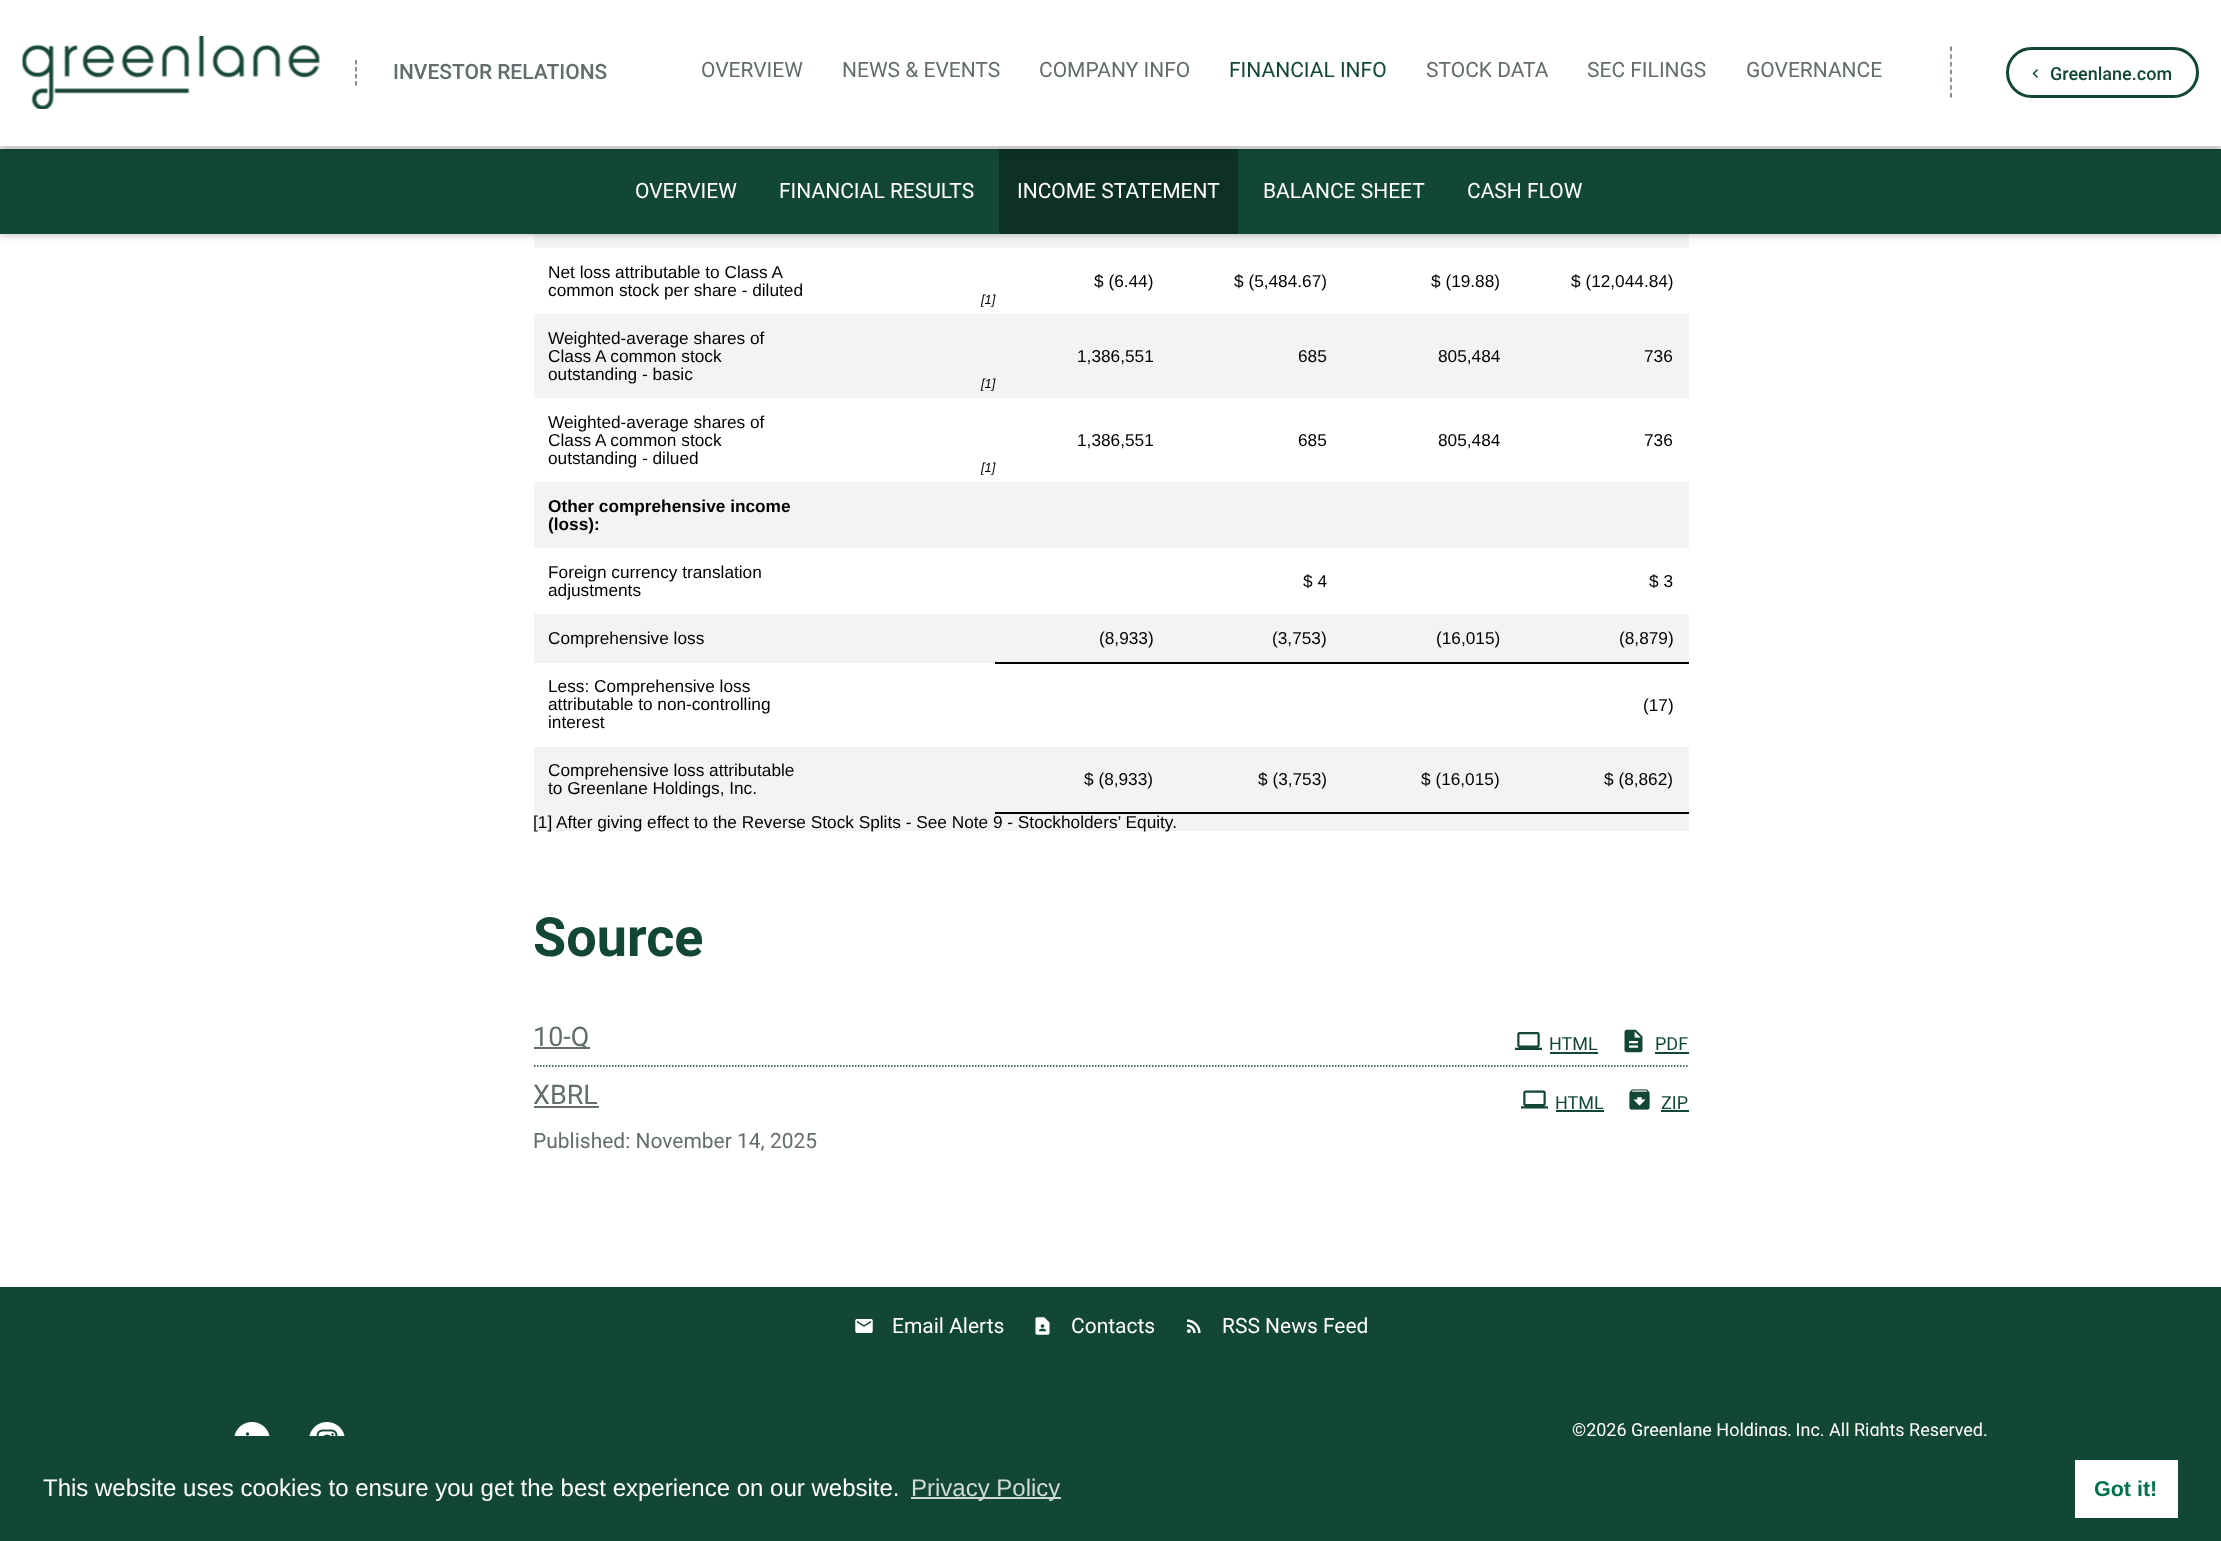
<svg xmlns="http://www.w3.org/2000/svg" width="2221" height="1541">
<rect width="100%" height="100%" fill="#fff"/>
<rect x="534" y="234" width="1155" height="14" fill="#f2f3f4"/>
<rect y="149" width="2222" height="85" fill="#0000004d" filter="blur(4px)"/>
<rect y="149" width="2221" height="85" fill="#124734"/>
<rect x="999" y="149" width="239" height="85" fill="#0d3224"/>
<rect width="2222" height="146" fill="#0000004d" filter="blur(4px)"/>
<rect width="2221" height="146" fill="#fff"/>
<image x="22" y="36" width="298" height="73" href="media/1.png"/>
<path d="M356 60v25.5" fill="none" stroke="#636d6d" stroke-width="1.5" stroke-dasharray="4.5 2.5"/>
<text x="393" y="79" style="font-family:Roboto;font-size:21px;font-weight:500;fill:#636d6d">INVESTOR RELATIONS</text>
<text x="701" y="77" style="font-family:Roboto;font-size:21px;fill:#636d6d">OVERVIEW</text>
<text x="842" y="77" style="font-family:Roboto;font-size:21px;fill:#636d6d">NEWS &amp; EVENTS</text>
<text x="1039" y="77" style="font-family:Roboto;font-size:21px;fill:#636d6d">COMPANY INFO</text>
<text x="1229" y="77" style="font-family:Roboto;font-size:21px;fill:#124734">FINANCIAL INFO</text>
<text x="1426" y="77" style="font-family:Roboto;font-size:21px;fill:#636d6d">STOCK DATA</text>
<text x="1587" y="77" style="font-family:Roboto;font-size:21px;fill:#636d6d">SEC FILINGS</text>
<text x="1746" y="77" style="font-family:Roboto;font-size:21px;fill:#636d6d">GOVERNANCE</text>
<path d="M1951 46.5v51" fill="none" stroke="#636d6d" stroke-width="1.5" stroke-dasharray="4.5 3.25"/>
<rect x="2007.5" y="48.5" width="190" height="48" rx="24" fill="none" stroke="#124734" stroke-width="3"/>
<image x="2032" y="69" width="6" height="9" href="media/2.png"/>
<text x="2050" y="80" style="font-family:Roboto;font-size:18px;font-weight:500;fill:#124734">Greenlane.com</text>
<text x="635" y="198" style="font-family:Roboto;font-size:21px;fill:#fff">OVERVIEW</text>
<text x="779" y="198" style="font-family:Roboto;font-size:21px;fill:#fff">FINANCIAL RESULTS</text>
<text x="1017" y="198" style="font-family:Roboto;font-size:21px;fill:#fff">INCOME STATEMENT</text>
<text x="1263" y="198" style="font-family:Roboto;font-size:21px;fill:#fff">BALANCE SHEET</text>
<text x="1467" y="198" style="font-family:Roboto;font-size:21px;fill:#fff">CASH FLOW</text>
<text x="548" y="278" style="font-family:Liberation Sans;font-size:17.25px;fill:#000">Net loss attributable to Class A</text>
<text x="548" y="296" style="font-family:Liberation Sans;font-size:17.25px;fill:#000">common stock per share - diluted</text>
<text x="1094" y="287" style="font-family:Liberation Sans;font-size:17.25px;fill:#000">$ (6.44)</text>
<text x="1234" y="287" style="font-family:Liberation Sans;font-size:17.25px;fill:#000">$ (5,484.67)</text>
<text x="1431" y="287" style="font-family:Liberation Sans;font-size:17.25px;fill:#000">$ (19.88)</text>
<text x="1571" y="287" style="font-family:Liberation Sans;font-size:17.25px;fill:#000">$ (12,044.84)</text>
<text x="981" y="304" style="font-family:Liberation Sans;font-size:13px;font-style:italic;fill:#000">[1]</text>
<rect x="534" y="314" width="1155" height="84" fill="#f2f3f4"/>
<text x="548" y="344" style="font-family:Liberation Sans;font-size:17.25px;fill:#000">Weighted-average shares of</text>
<text x="548" y="362" style="font-family:Liberation Sans;font-size:17.25px;fill:#000">Class A common stock</text>
<text x="548" y="380" style="font-family:Liberation Sans;font-size:17.25px;fill:#000">outstanding - basic</text>
<text x="1077" y="362" style="font-family:Liberation Sans;font-size:17.25px;fill:#000">1,386,551</text>
<text x="1298" y="362" style="font-family:Liberation Sans;font-size:17.25px;fill:#000">685</text>
<text x="1438" y="362" style="font-family:Liberation Sans;font-size:17.25px;fill:#000">805,484</text>
<text x="1644" y="362" style="font-family:Liberation Sans;font-size:17.25px;fill:#000">736</text>
<text x="981" y="388" style="font-family:Liberation Sans;font-size:13px;font-style:italic;fill:#000">[1]</text>
<text x="548" y="428" style="font-family:Liberation Sans;font-size:17.25px;fill:#000">Weighted-average shares of</text>
<text x="548" y="446" style="font-family:Liberation Sans;font-size:17.25px;fill:#000">Class A common stock</text>
<text x="548" y="464" style="font-family:Liberation Sans;font-size:17.25px;fill:#000">outstanding - dilued</text>
<text x="1077" y="446" style="font-family:Liberation Sans;font-size:17.25px;fill:#000">1,386,551</text>
<text x="1298" y="446" style="font-family:Liberation Sans;font-size:17.25px;fill:#000">685</text>
<text x="1438" y="446" style="font-family:Liberation Sans;font-size:17.25px;fill:#000">805,484</text>
<text x="1644" y="446" style="font-family:Liberation Sans;font-size:17.25px;fill:#000">736</text>
<text x="981" y="472" style="font-family:Liberation Sans;font-size:13px;font-style:italic;fill:#000">[1]</text>
<rect x="534" y="482" width="1155" height="66" fill="#f2f3f4"/>
<text x="548" y="512" style="font-family:Liberation Sans;font-size:17.25px;font-weight:bold;fill:#000">Other comprehensive income</text>
<text x="548" y="530" style="font-family:Liberation Sans;font-size:17.25px;font-weight:bold;fill:#000">(loss):</text>
<text x="548" y="578" style="font-family:Liberation Sans;font-size:17.25px;fill:#000">Foreign currency translation</text>
<text x="548" y="596" style="font-family:Liberation Sans;font-size:17.25px;fill:#000">adjustments</text>
<text x="1303" y="587" style="font-family:Liberation Sans;font-size:17.25px;fill:#000">$ 4</text>
<text x="1649" y="587" style="font-family:Liberation Sans;font-size:17.25px;fill:#000">$ 3</text>
<rect x="534" y="614" width="1155" height="49" fill="#f2f3f4"/>
<text x="548" y="644" style="font-family:Liberation Sans;font-size:17.25px;fill:#000">Comprehensive loss</text>
<text x="1099" y="644" style="font-family:Liberation Sans;font-size:17.25px;fill:#000">(8,933)</text>
<text x="1272" y="644" style="font-family:Liberation Sans;font-size:17.25px;fill:#000">(3,753)</text>
<text x="1436" y="644" style="font-family:Liberation Sans;font-size:17.25px;fill:#000">(16,015)</text>
<rect x="995" y="662" width="694" height="2" fill="#000"/>
<text x="1619" y="644" style="font-family:Liberation Sans;font-size:17.25px;fill:#000">(8,879)</text>
<text x="548" y="692" style="font-family:Liberation Sans;font-size:17.25px;fill:#000">Less: Comprehensive loss</text>
<text x="548" y="710" style="font-family:Liberation Sans;font-size:17.25px;fill:#000">attributable to non-controlling</text>
<text x="548" y="728" style="font-family:Liberation Sans;font-size:17.25px;fill:#000">interest</text>
<text x="1643" y="711" style="font-family:Liberation Sans;font-size:17.25px;fill:#000">(17)</text>
<rect x="534" y="747" width="1155" height="84" fill="#f2f3f4"/>
<text x="548" y="776" style="font-family:Liberation Sans;font-size:17.25px;fill:#000">Comprehensive loss attributable</text>
<text x="548" y="794" style="font-family:Liberation Sans;font-size:17.25px;fill:#000">to Greenlane Holdings, Inc.</text>
<text x="1084" y="785" style="font-family:Liberation Sans;font-size:17.25px;fill:#000">$ (8,933)</text>
<text x="1258" y="785" style="font-family:Liberation Sans;font-size:17.25px;fill:#000">$ (3,753)</text>
<text x="1421" y="785" style="font-family:Liberation Sans;font-size:17.25px;fill:#000">$ (16,015)</text>
<rect x="995" y="812" width="694" height="2" fill="#000"/>
<text x="1604" y="785" style="font-family:Liberation Sans;font-size:17.25px;fill:#000">$ (8,862)</text>
<text x="533" y="828" style="font-family:Liberation Sans;font-size:17.25px;fill:#000">[1] After giving effect to the Reverse Stock Splits - See Note 9 - Stockholders’ Equity.</text>
<text x="533" y="956" style="font-family:Roboto;font-size:54px;font-weight:bold;fill:#124734">Source</text>
<rect x="534" y="1047" width="56" height="2" fill="#636d6d"/>
<text x="533" y="1046" style="font-family:Roboto;font-size:27px;fill:#636d6d">10-Q</text>
<image x="1515" y="1032" width="27" height="18" href="media/3.png"/>
<text x="1549" y="1050" style="font-family:Roboto;font-size:18px;fill:#124734">HTML</text>
<rect x="1550" y="1052" width="48" height="2" fill="#124734"/>
<image x="1624" y="1029" width="19" height="24" href="media/4.png"/>
<text x="1655" y="1050" style="font-family:Roboto;font-size:18px;fill:#124734">PDF</text>
<rect x="1655" y="1052" width="34" height="2" fill="#124734"/>
<path d="M534 1066h1155" fill="none" stroke="#124734" stroke-width="1.5" stroke-dasharray="1.5 1.5"/>
<text x="533" y="1104" style="font-family:Roboto;font-size:27px;fill:#636d6d">XBRL</text>
<rect x="534" y="1106" width="65" height="2" fill="#636d6d"/>
<image x="1521" y="1090" width="27" height="19" href="media/5.png"/>
<text x="1555" y="1109" style="font-family:Roboto;font-size:18px;fill:#124734">HTML</text>
<rect x="1556" y="1110" width="48" height="2" fill="#124734"/>
<image x="1629" y="1089" width="21" height="21" href="media/6.png"/>
<text x="1661" y="1109" style="font-family:Roboto;font-size:18px;fill:#124734">ZIP</text>
<rect x="1661" y="1110" width="28" height="2" fill="#124734"/>
<text x="533" y="1148" style="font-family:Roboto;font-size:21px;fill:#636d6d">Published: November 14, 2025</text>
<rect y="1287" width="2221" height="149" fill="#124734"/>
<image x="855" y="1319" width="18" height="14" href="media/7.png"/>
<text x="892" y="1333" style="font-family:Roboto;font-size:21px;fill:#fff">Email Alerts</text>
<image x="1035" y="1317" width="15" height="18" href="media/8.png"/>
<text x="1071" y="1333" style="font-family:Roboto;font-size:21px;fill:#fff">Contacts</text>
<image x="1187" y="1319" width="14" height="14" href="media/9.png"/>
<text x="1222" y="1333" style="font-family:Roboto;font-size:21px;fill:#fff">RSS News Feed</text>
<image x="234" y="1422" width="36" height="14" href="media/10.png"/>
<image x="309" y="1422" width="36" height="14" href="media/11.png"/>
<text x="1572" y="1436" style="font-family:Roboto;font-size:18px;fill:#fff">©2026 Greenlane Holdings, Inc. All Rights Reserved.</text>
<rect y="1436" width="2221" height="105" fill="#124734"/>
<text x="43" y="1496" style="font-family:Liberation Sans;font-size:24px;fill:#fff">This website uses cookies to ensure you get the best experience on our website.</text>
<rect x="911" y="1497" width="150" height="2" fill="#d0dad6"/>
<text x="911" y="1496" style="font-family:Liberation Sans;font-size:24px;fill:#d0dad6">Privacy Policy</text>
<rect x="2075" y="1460" width="103" height="58" fill="#fff"/>
<text x="2094" y="1496" style="font-family:Liberation Sans;font-size:21.5px;font-weight:bold;fill:#00714b">Got it!</text>
</svg>
